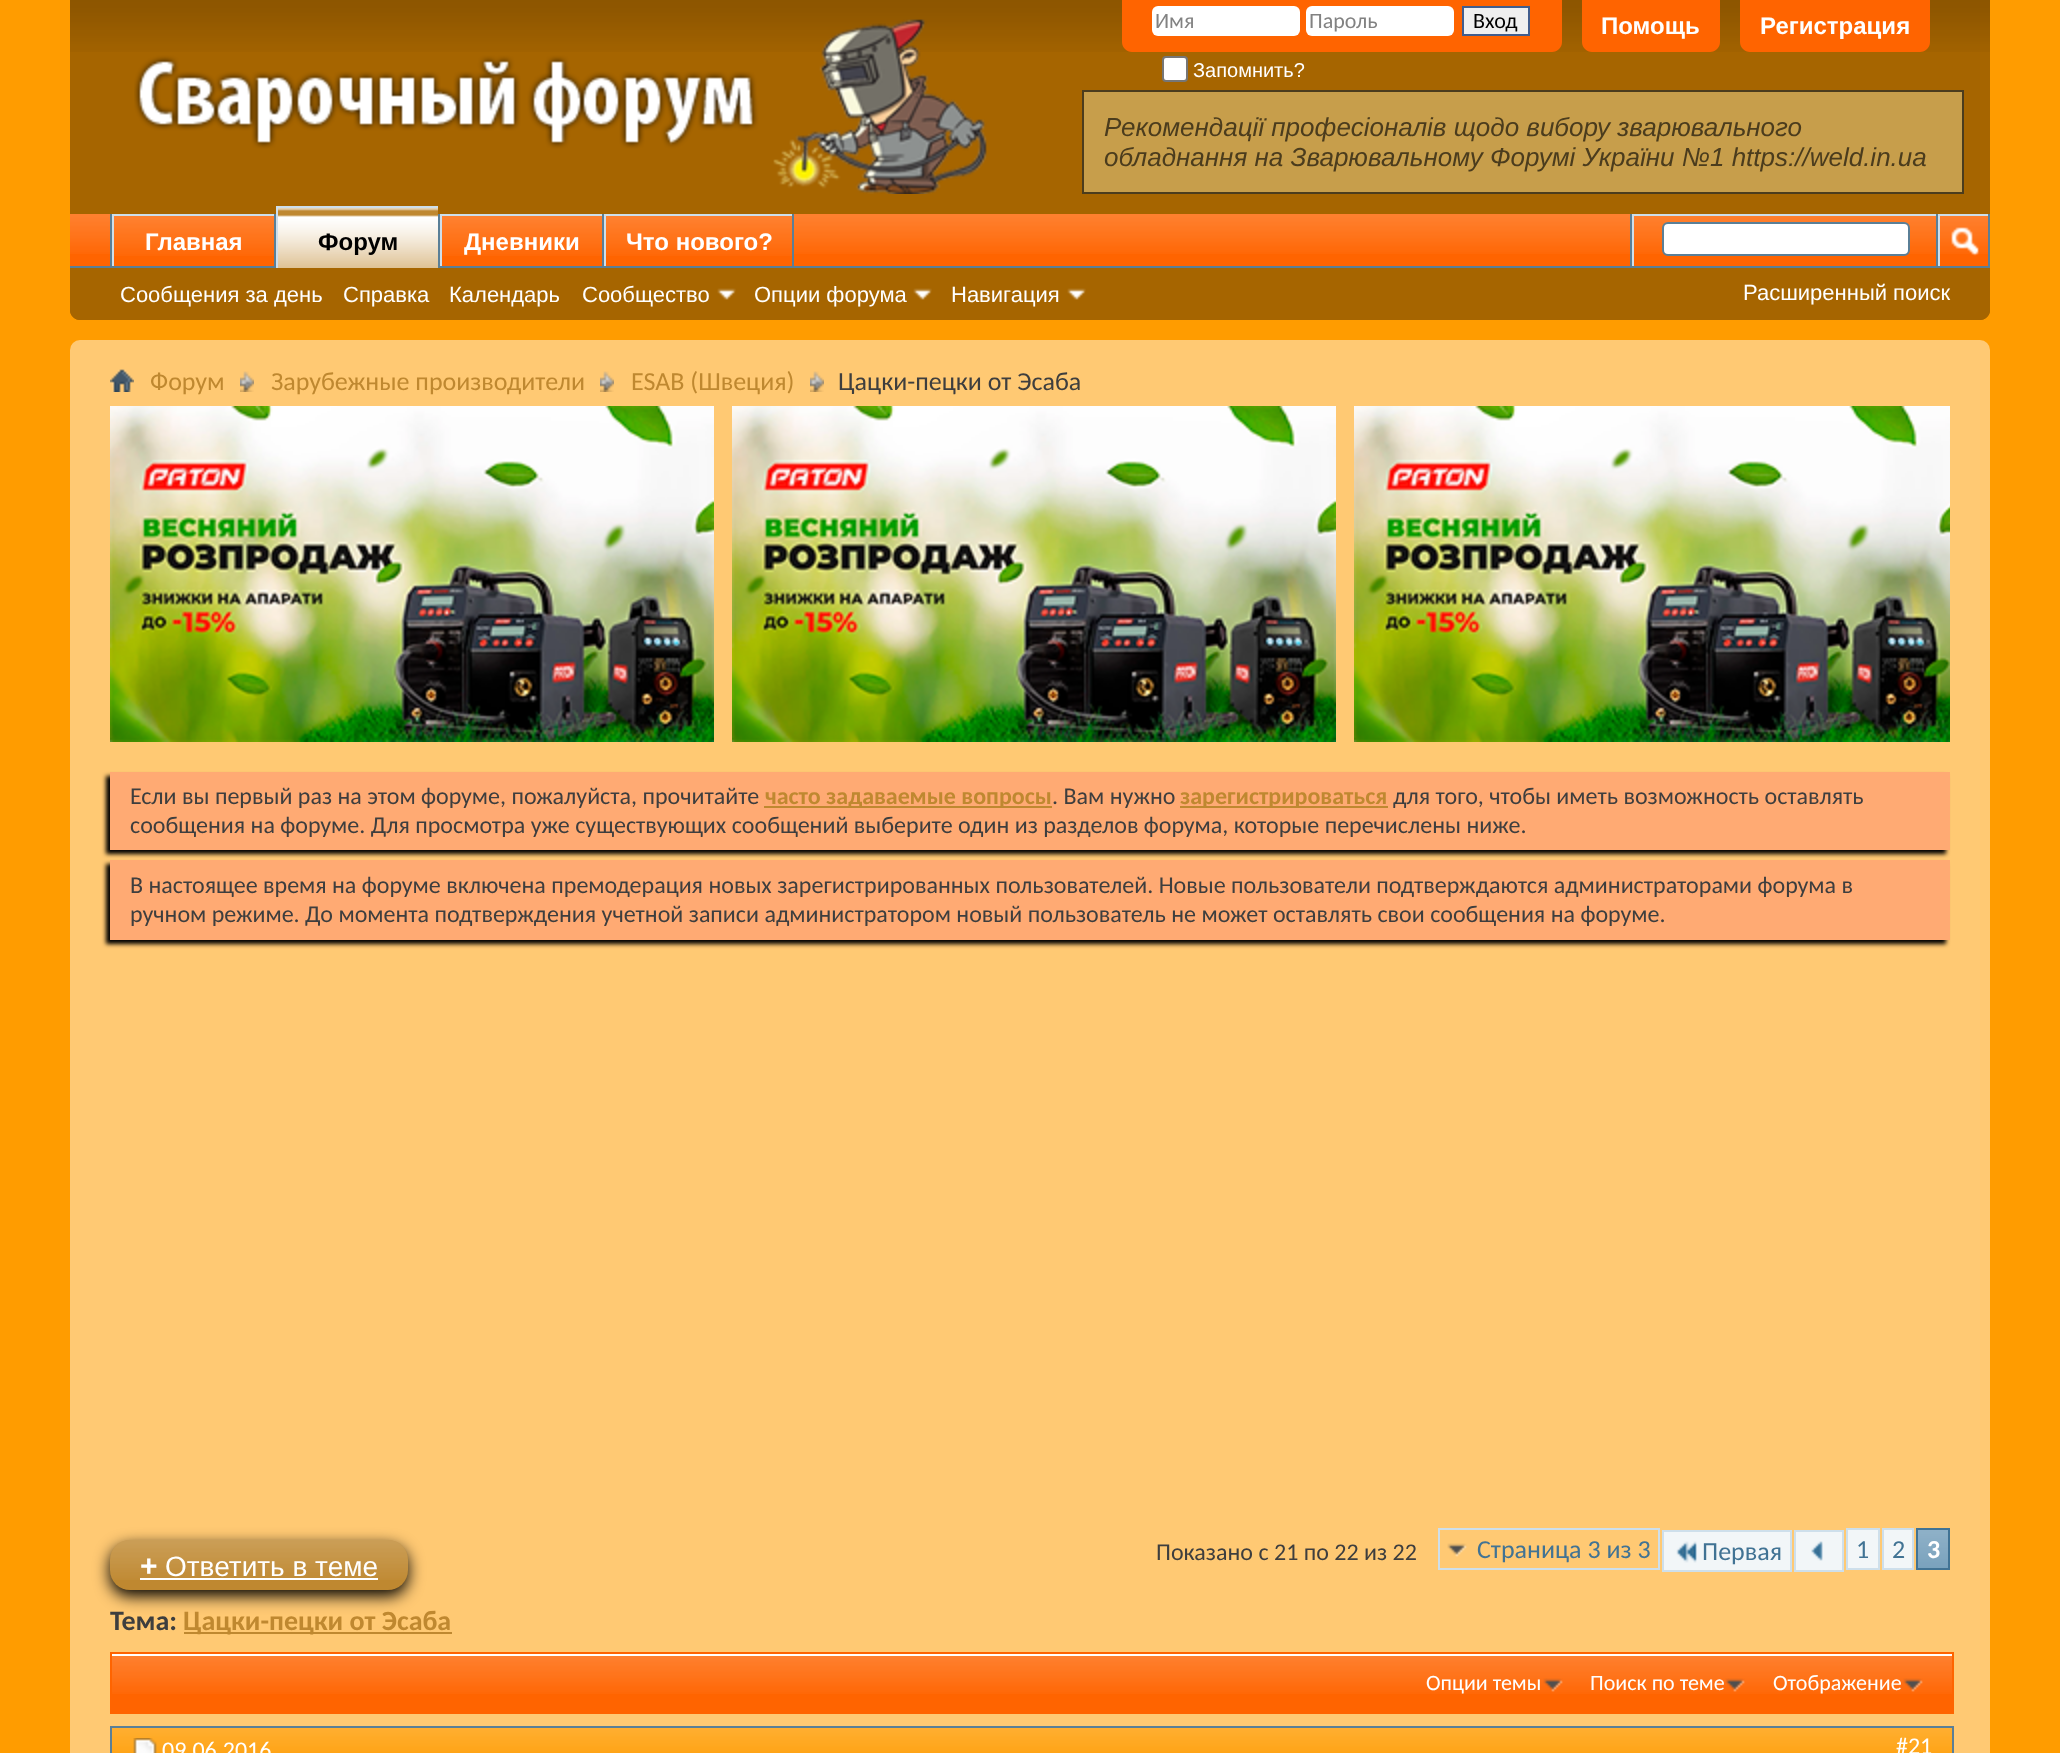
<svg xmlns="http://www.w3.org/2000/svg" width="2060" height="1753">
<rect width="100%" height="100%" fill="#ff9c00"/>
<path d="M70 0h1920v310c0 5.5-4.5 10-10 10h-1900c-5.5 0-10-4.5-10-10z" fill="#a66500"/>
<image x="70" y="0" width="1920" height="52" href="media/1.png"/>
<path d="M1122 0h440v42c0 5.5-4.5 10-10 10h-420c-5.5 0-10-4.5-10-10z" fill="#ff6400"/>
<rect x="1152" y="6" width="148" height="30" rx="6" fill="#fff"/>
<text x="1155" y="28" style="font-family:Carlito;font-size:22px;fill:#828282">Имя</text>
<rect x="1306" y="6" width="148" height="30" rx="6" fill="#fff"/>
<text x="1309" y="28" style="font-family:Carlito;font-size:22px;fill:#828282">Пароль</text>
<rect x="1463" y="7" width="66" height="28" fill="#efefef" stroke="#415d8d" stroke-width="2"/>
<text x="1473" y="28" style="font-family:Carlito;font-size:22px;fill:#000">Вход</text>
<rect x="1163" y="57" width="24" height="24" rx="3" fill="#fff" stroke="#767676" stroke-width="2"/>
<text x="1193" y="77" style="font-family:Liberation Sans;font-size:20px;fill:#fff">Запомнить?</text>
<path d="M1582 0h138v42c0 5.5-4.5 10-10 10h-118c-5.5 0-10-4.5-10-10z" fill="#ff6400"/>
<text x="1601" y="34" style="font-family:Liberation Sans;font-size:24px;font-weight:bold;fill:#fff">Помощь</text>
<path d="M1740 0h190v42c0 5.5-4.5 10-10 10h-170c-5.5 0-10-4.5-10-10z" fill="#ff6400"/>
<text x="1760" y="34" style="font-family:Liberation Sans;font-size:24px;font-weight:bold;fill:#fff">Регистрация</text>
<image x="134" y="19" width="853" height="175" href="media/2.png"/>
<rect x="1083" y="91" width="880" height="102" fill="#c79e4b" stroke="#4b3c1d" stroke-width="2"/>
<text x="1104" y="136" style="font-family:Liberation Sans;font-size:26px;font-style:italic;fill:#4b3c1d">Рекомендації професіоналів щодо вибору зварювального</text>
<text x="1104" y="166" style="font-family:Liberation Sans;font-size:26px;font-style:italic;fill:#4b3c1d">обладнання на Зварювальному Форумі України №1 https://weld.in.ua</text>
<path d="M70 214h1920v96c0 5.5-4.5 10-10 10h-1900c-5.5 0-10-4.5-10-10z" fill="#a66500"/>
<rect x="70" y="214" width="1918" height="52" fill="#ff6400"/>
<image x="70" y="214" width="1918" height="40" href="media/3.png"/>
<rect x="438" y="214" width="2" height="52" fill="#5a7f97"/>
<rect x="274" y="214" width="2" height="54" fill="#5a7f97"/>
<rect x="110" y="214" width="2" height="54" fill="#5a7f97"/>
<rect x="112" y="214" width="162" height="2" fill="#cedfeb"/>
<rect x="112" y="214" width="2" height="54" fill="#cedfeb"/>
<rect x="602" y="214" width="2" height="54" fill="#5a7f97"/>
<rect x="440" y="214" width="162" height="2" fill="#cedfeb"/>
<rect x="440" y="214" width="2" height="54" fill="#cedfeb"/>
<rect x="792" y="214" width="2" height="54" fill="#5a7f97"/>
<rect x="604" y="214" width="188" height="2" fill="#cedfeb"/>
<rect x="604" y="214" width="2" height="54" fill="#cedfeb"/>
<rect x="70" y="266" width="1920" height="2" fill="#5a7f97"/>
<rect x="278" y="208" width="160" height="60" fill="#bf8830"/>
<image x="278" y="208" width="160" height="60" href="media/4.png"/>
<rect x="276" y="206" width="162" height="2" fill="#cedfeb"/>
<rect x="276" y="206" width="2" height="62" fill="#cedfeb"/>
<text x="318" y="250" style="font-family:Liberation Sans;font-size:24px;font-weight:bold;fill:#000">Форум</text>
<text x="120" y="302" style="font-family:Liberation Sans;font-size:22px;fill:#fff">Сообщения за день</text>
<text x="343" y="302" style="font-family:Liberation Sans;font-size:22px;fill:#fff">Справка</text>
<text x="449" y="302" style="font-family:Liberation Sans;font-size:22px;fill:#fff">Календарь</text>
<text x="582" y="302" style="font-family:Liberation Sans;font-size:22px;fill:#fff">Сообщество</text>
<image x="717" y="288" width="19" height="12" href="media/5.png"/>
<text x="754" y="302" style="font-family:Liberation Sans;font-size:22px;fill:#fff">Опции форума</text>
<image x="913" y="288" width="19" height="12" href="media/5.png"/>
<text x="951" y="302" style="font-family:Liberation Sans;font-size:22px;fill:#fff">Навигация</text>
<image x="1067" y="288" width="19" height="12" href="media/5.png"/>
<rect x="114" y="216" width="160" height="38" fill="#ff6400"/>
<image x="114" y="216" width="160" height="40" href="media/6.png"/>
<text x="145" y="250" style="font-family:Liberation Sans;font-size:24px;font-weight:bold;fill:#fff">Главная</text>
<rect x="442" y="216" width="160" height="38" fill="#ff6400"/>
<image x="442" y="216" width="160" height="40" href="media/6.png"/>
<text x="464" y="250" style="font-family:Liberation Sans;font-size:24px;font-weight:bold;fill:#fff">Дневники</text>
<rect x="606" y="216" width="186" height="38" fill="#ff6400"/>
<image x="606" y="216" width="186" height="40" href="media/7.png"/>
<text x="626" y="250" style="font-family:Liberation Sans;font-size:24px;font-weight:bold;fill:#fff">Что нового?</text>
<rect x="1630" y="214" width="2" height="52" fill="#5a7f97"/>
<rect x="1632" y="214" width="304" height="2" fill="#cedfeb"/>
<rect x="1632" y="214" width="2" height="52" fill="#cedfeb"/>
<rect x="1663" y="223" width="246" height="32" rx="5" fill="#fff" stroke="#5a7f97" stroke-width="2"/>
<rect x="1988" y="214" width="2" height="52" fill="#5a7f97"/>
<rect x="1936" y="214" width="2" height="52" fill="#5a7f97"/>
<rect x="1938" y="214" width="50" height="2" fill="#cedfeb"/>
<rect x="1938" y="214" width="2" height="52" fill="#cedfeb"/>
<image x="1951" y="227" width="28" height="29" href="media/8.png"/>
<text x="1743" y="300" style="font-family:Liberation Sans;font-size:22px;fill:#fff">Расширенный поиск</text>
<rect x="70" y="340" width="1920" height="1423" rx="10" fill="#ffc973"/>
<image x="110" y="369" width="24" height="23" href="media/9.png"/>
<image x="240" y="371" width="14" height="21" href="media/10.png"/>
<text x="150" y="390" style="font-family:Carlito;font-size:26px;fill:#bf8830">Форум</text>
<image x="600" y="371" width="14" height="21" href="media/10.png"/>
<text x="271" y="390" style="font-family:Carlito;font-size:26px;fill:#bf8830">Зарубежные производители</text>
<image x="810" y="371" width="14" height="21" href="media/10.png"/>
<text x="631" y="390" style="font-family:Carlito;font-size:26px;fill:#bf8830">ESAB (Швеция)</text>
<text x="838" y="390" style="font-family:Carlito;font-size:26px;fill:#3e3e3e">Цацки-пецки от Эсаба</text>
<image x="110" y="406" width="604" height="336" href="media/11.png"/>
<image x="732" y="406" width="604" height="336" href="media/11.png"/>
<image x="1354" y="406" width="596" height="336" href="media/12.png"/>
<rect x="106" y="776" width="1840" height="78" fill="#000" filter="blur(2px)"/>
<rect x="110" y="772" width="1840" height="78" fill="#ffaa73"/>
<text x="130" y="804" style="font-family:Carlito;font-size:24px;fill:#3e3e3e">Если вы первый раз на этом форуме, пожалуйста, прочитайте</text>
<rect x="764" y="806" width="288" height="2" fill="#bf8830"/>
<text x="765" y="804" style="font-family:Carlito;font-size:24px;font-weight:bold;fill:#bf8830">часто задаваемые вопросы</text>
<text x="1052" y="804" style="font-family:Carlito;font-size:24px;fill:#3e3e3e">. Вам нужно</text>
<rect x="1180" y="806" width="208" height="2" fill="#bf8830"/>
<text x="1180" y="804" style="font-family:Carlito;font-size:24px;font-weight:bold;fill:#bf8830">зарегистрироваться</text>
<text x="1393" y="804" style="font-family:Carlito;font-size:24px;fill:#3e3e3e">для того, чтобы иметь возможность оставлять</text>
<text x="130" y="833" style="font-family:Carlito;font-size:24px;fill:#3e3e3e">сообщения на форуме. Для просмотра уже существующих сообщений выберите один из разделов форума, которые перечислены ниже.</text>
<rect x="106" y="864" width="1840" height="80" fill="#000" filter="blur(2px)"/>
<rect x="110" y="860" width="1840" height="80" fill="#ffaa73"/>
<text x="130" y="893" style="font-family:Carlito;font-size:24px;fill:#3e3e3e">В настоящее время на форуме включена премодерация новых зарегистрированных пользователей. Новые пользователи подтверждаются администраторами форума в</text>
<text x="130" y="922" style="font-family:Carlito;font-size:24px;fill:#3e3e3e">ручном режиме. До момента подтверждения учетной записи администратором новый пользователь не может оставлять свои сообщения на форуме.</text>
<rect x="110" y="1546" width="298" height="50" rx="20" fill="#000" filter="blur(8px)"/>
<rect x="110" y="1540" width="298" height="50" rx="20" fill="#bf8830"/>
<image x="110" y="1540" width="298" height="40" href="media/13.png"/>
<text x="140" y="1576" style="font-family:Liberation Sans;font-size:30px;font-weight:bold;fill:#fff">+</text>
<rect x="140" y="1578" width="238" height="2" fill="#fff"/>
<text x="165" y="1576" style="font-family:Liberation Sans;font-size:28px;fill:#fff">Ответить в теме</text>
<text x="1156" y="1560" style="font-family:Carlito;font-size:24px;fill:#3e3e3e">Показано с 21 по 22 из 22</text>
<image x="1447" y="1543" width="20" height="14" href="media/14.png"/>
<rect x="1439" y="1529" width="220" height="40" fill="none" stroke="#cedfeb" stroke-width="2"/>
<text x="1477" y="1558" style="font-family:Carlito;font-size:26px;fill:#417394">Страница 3 из 3</text>
<rect x="1664" y="1532" width="126" height="38" fill="#f2f6f8"/>
<image x="1676" y="1541" width="21" height="22" href="media/15.png"/>
<text x="1702" y="1560" style="font-family:Carlito;font-size:26px;fill:#417394">Первая</text>
<rect x="1662" y="1530" width="130" height="2" fill="#cedfeb"/>
<rect x="1662" y="1570" width="40" height="2" fill="#cedfeb"/>
<rect x="1662" y="1530" width="2" height="42" fill="#cedfeb"/>
<rect x="1790" y="1530" width="2" height="42" fill="#cedfeb"/>
<rect x="1702" y="1570" width="90" height="2" fill="#cedfeb"/>
<rect x="1795" y="1531" width="48" height="40" fill="#f2f6f8" stroke="#cedfeb" stroke-width="2"/>
<image x="1811" y="1541" width="12" height="20" href="media/16.png"/>
<rect x="1847" y="1529" width="32" height="40" fill="#f2f6f8" stroke="#cedfeb" stroke-width="2"/>
<text x="1856" y="1558" style="font-family:Carlito;font-size:26px;fill:#417394">1</text>
<rect x="1883" y="1529" width="30" height="40" fill="#f2f6f8" stroke="#cedfeb" stroke-width="2"/>
<text x="1892" y="1558" style="font-family:Carlito;font-size:26px;fill:#417394">2</text>
<rect x="1918" y="1530" width="30" height="38" fill="#759fbb"/>
<image x="1918" y="1530" width="30" height="38" href="media/17.png"/>
<rect x="1917" y="1529" width="32" height="40" fill="none" stroke="#417394" stroke-width="2"/>
<text x="1927" y="1558" style="font-family:Carlito;font-size:26px;font-weight:bold;fill:#fff">3</text>
<text x="110" y="1630" style="font-family:Carlito;font-size:28px;font-weight:bold;fill:#3e3e3e">Тема:</text>
<rect x="184" y="1632" width="268" height="2" fill="#bf8830"/>
<text x="183" y="1630" style="font-family:Carlito;font-size:28px;font-weight:bold;fill:#bf8830">Цацки-пецки от Эсаба</text>
<rect x="112" y="1656" width="1840" height="56" fill="#ff6400"/>
<image x="112" y="1656" width="1840" height="38" href="media/18.png"/>
<rect x="111" y="1653" width="1842" height="60" fill="none" stroke="#ff6400" stroke-width="2"/>
<rect x="112" y="1654" width="1840" height="2" fill="#fff"/>
<image x="1543" y="1678" width="20" height="14" href="media/19.png"/>
<text x="1426" y="1690" style="font-family:Carlito;font-size:22px;fill:#fff">Опции темы</text>
<image x="1725" y="1678" width="20" height="14" href="media/19.png"/>
<text x="1590" y="1690" style="font-family:Carlito;font-size:22px;fill:#fff">Поиск по теме</text>
<image x="1903" y="1678" width="20" height="14" href="media/19.png"/>
<text x="1773" y="1690" style="font-family:Carlito;font-size:22px;fill:#fff">Отображение</text>
<rect x="112" y="1728" width="1840" height="25" fill="#ff9c00"/>
<image x="112" y="1728" width="1840" height="25" href="media/20.png"/>
<rect x="111" y="1727" width="1842" height="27" fill="none" stroke="#5a7f97" stroke-width="2"/>
<image x="133" y="1738" width="24" height="15" href="media/21.png"/>
<text x="162" y="1758" style="font-family:Carlito;font-size:24px;fill:#fff">09.06.2016</text>
<text x="1896" y="1754" style="font-family:Carlito;font-size:24px;fill:#fff">#21</text>
</svg>
